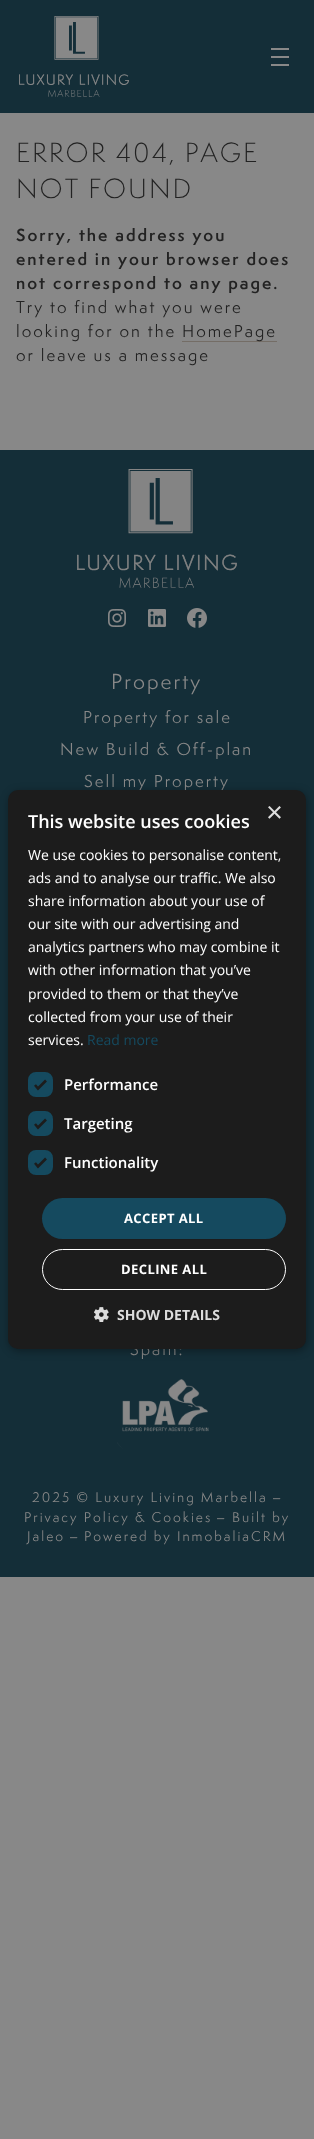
<svg xmlns="http://www.w3.org/2000/svg" width="314" height="2139">
<rect width="100%" height="100%" fill="#888"/>
<rect width="314" height="113" fill="#142e38"/>
<image x="19" y="16" width="110" height="81" href="media/1.png"/>
<rect x="271" y="48" width="18" height="2" fill="#888"/>
<rect x="271" y="56" width="18" height="2" fill="#888"/>
<rect x="271" y="64" width="18" height="2" fill="#888"/>
<text x="16" y="162" style="font-family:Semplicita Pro;font-size:25.5px;font-weight:300;letter-spacing:2px;fill:#222">ERROR 404, PAGE</text>
<text x="16" y="198" style="font-family:Semplicita Pro;font-size:25.5px;font-weight:300;letter-spacing:2px;fill:#222">NOT FOUND</text>
<text x="16" y="241" style="font-family:Semplicita Pro;font-size:16px;font-weight:600;letter-spacing:2px;fill:#222">Sorry, the address you</text>
<text x="16" y="265" style="font-family:Semplicita Pro;font-size:16px;font-weight:600;letter-spacing:2px;fill:#222">entered in your browser does</text>
<text x="16" y="289" style="font-family:Semplicita Pro;font-size:16px;font-weight:600;letter-spacing:2px;fill:#222">not correspond to any page.</text>
<text x="16" y="313" style="font-family:Semplicita Pro;font-size:16px;letter-spacing:2px;fill:#222">Try to find what you were</text>
<text x="16" y="337" style="font-family:Semplicita Pro;font-size:16px;letter-spacing:2px;fill:#222">looking for on the</text>
<rect x="182" y="341" width="95" height="1" fill="#746d66"/>
<text x="182" y="337" style="font-family:Semplicita Pro;font-size:16px;letter-spacing:2px;fill:#222">HomePage</text>
<text x="16" y="361" style="font-family:Semplicita Pro;font-size:16px;letter-spacing:2px;fill:#222">or leave us a message</text>
<rect y="450" width="314" height="1127" fill="#142e38"/>
<image x="77" y="469" width="160" height="119" href="media/2.png"/>
<image x="108" y="609" width="18" height="18" href="media/3.png"/>
<image x="148" y="609" width="18" height="18" href="media/4.png"/>
<image x="187" y="608" width="20" height="20" href="media/5.png"/>
<text x="111" y="689" style="font-family:Semplicita Pro;font-size:20px;letter-spacing:2px;fill:#888">Property</text>
<text x="83" y="723" style="font-family:Semplicita Pro;font-size:16px;letter-spacing:2px;fill:#888">Property for sale</text>
<text x="60" y="755" style="font-family:Semplicita Pro;font-size:16px;letter-spacing:2px;fill:#888">New Build &amp; Off-plan</text>
<text x="84" y="787" style="font-family:Semplicita Pro;font-size:16px;letter-spacing:2px;fill:#888">Sell my Property</text>
<text x="130" y="1355" style="font-family:Semplicita Pro;font-size:16px;letter-spacing:2px;fill:#888">Spain:</text>
<image x="117" y="1379" width="92" height="70" href="media/6.png"/>
<text x="32" y="1502" style="font-family:Semplicita Pro;font-size:13px;letter-spacing:2px;fill:#888">2025 © Luxury Living Marbella</text>
<text x="273" y="1502" style="font-family:Liberation Sans;font-size:13px;letter-spacing:2px;fill:#888">–</text>
<text x="24" y="1522" style="font-family:Semplicita Pro;font-size:13px;letter-spacing:2px;fill:#888">Privacy Policy &amp; Cookies</text>
<text x="217" y="1522" style="font-family:Liberation Sans;font-size:13px;letter-spacing:2px;fill:#888">–</text>
<text x="232" y="1522" style="font-family:Semplicita Pro;font-size:13px;letter-spacing:2px;fill:#888">Built by</text>
<text x="27" y="1541" style="font-family:Semplicita Pro;font-size:13px;letter-spacing:2px;fill:#888">Jaleo</text>
<text x="70" y="1541" style="font-family:Liberation Sans;font-size:13px;letter-spacing:2px;fill:#888">–</text>
<text x="84" y="1541" style="font-family:Semplicita Pro;font-size:13px;letter-spacing:2px;fill:#888">Powered by InmobaliaCRM</text>
<rect x="9" y="792" width="298" height="559" rx="10" fill="#00000059" filter="blur(4px)"/>
<rect x="8" y="790" width="298" height="559" rx="10" fill="#1c1c1c"/>
<text x="266" y="822" style="font-family:Liberation Sans;font-size:29px;fill:#ddd">×</text>
<text x="28" y="828" style="font-family:Open Sans;font-size:18px;font-weight:600;fill:#fff">This website uses cookies</text>
<text x="28" y="860" style="font-family:Open Sans;font-size:14px;fill:#fff">We use cookies to personalise content,</text>
<text x="28" y="883" style="font-family:Open Sans;font-size:14px;fill:#fff">ads and to analyse our traffic. We also</text>
<text x="28" y="906" style="font-family:Open Sans;font-size:14px;fill:#fff">share information about your use of</text>
<text x="28" y="929" style="font-family:Open Sans;font-size:14px;fill:#fff">our site with our advertising and</text>
<text x="28" y="952" style="font-family:Open Sans;font-size:14px;fill:#fff">analytics partners who may combine it</text>
<text x="28" y="975" style="font-family:Open Sans;font-size:14px;fill:#fff">with other information that you’ve</text>
<text x="28" y="999" style="font-family:Open Sans;font-size:14px;fill:#fff">provided to them or that they’ve</text>
<text x="28" y="1022" style="font-family:Open Sans;font-size:14px;fill:#fff">collected from your use of their</text>
<text x="28" y="1045" style="font-family:Open Sans;font-size:14px;fill:#fff">services.</text>
<text x="87" y="1045" style="font-family:Open Sans;font-size:14px;fill:#154a5f">Read more</text>
<rect x="29" y="1073" width="23" height="23" rx="7" fill="#154a5f" stroke="#154a5f" stroke-width="2"/>
<path d="M35 1085l3 3.5l8-8" fill="none" stroke="#1c1c1c" stroke-width="2.6"/>
<text x="64" y="1090" style="font-family:Open Sans;font-size:15px;font-weight:600;fill:#fff">Performance</text>
<rect x="29" y="1112" width="23" height="23" rx="7" fill="#154a5f" stroke="#154a5f" stroke-width="2"/>
<path d="M35 1124l3 3.5l8-8" fill="none" stroke="#1c1c1c" stroke-width="2.6"/>
<text x="64" y="1129" style="font-family:Open Sans;font-size:15px;font-weight:600;fill:#fff">Targeting</text>
<rect x="29" y="1151" width="23" height="23" rx="7" fill="#154a5f" stroke="#154a5f" stroke-width="2"/>
<path d="M35 1163l3 3.5l8-8" fill="none" stroke="#1c1c1c" stroke-width="2.6"/>
<text x="64" y="1168" style="font-family:Open Sans;font-size:15px;font-weight:600;fill:#fff">Functionality</text>
<rect x="42" y="1198" width="244" height="41" rx="20.5" fill="#154a5f"/>
<text x="124" y="1223" style="font-family:Open Sans;font-size:13px;font-weight:bold;letter-spacing:0.4px;fill:#fff">ACCEPT ALL</text>
<rect x="42.5" y="1249.5" width="243" height="40" rx="20" fill="none" stroke="#fff"/>
<text x="121" y="1274" style="font-family:Open Sans;font-size:13px;font-weight:bold;letter-spacing:0.4px;fill:#fff">DECLINE ALL</text>
<image x="94" y="1307" width="15" height="15" href="media/7.png"/>
<text x="117" y="1320" style="font-family:Open Sans;font-size:14px;font-weight:bold;fill:#ddd">SHOW DETAILS</text>
</svg>
